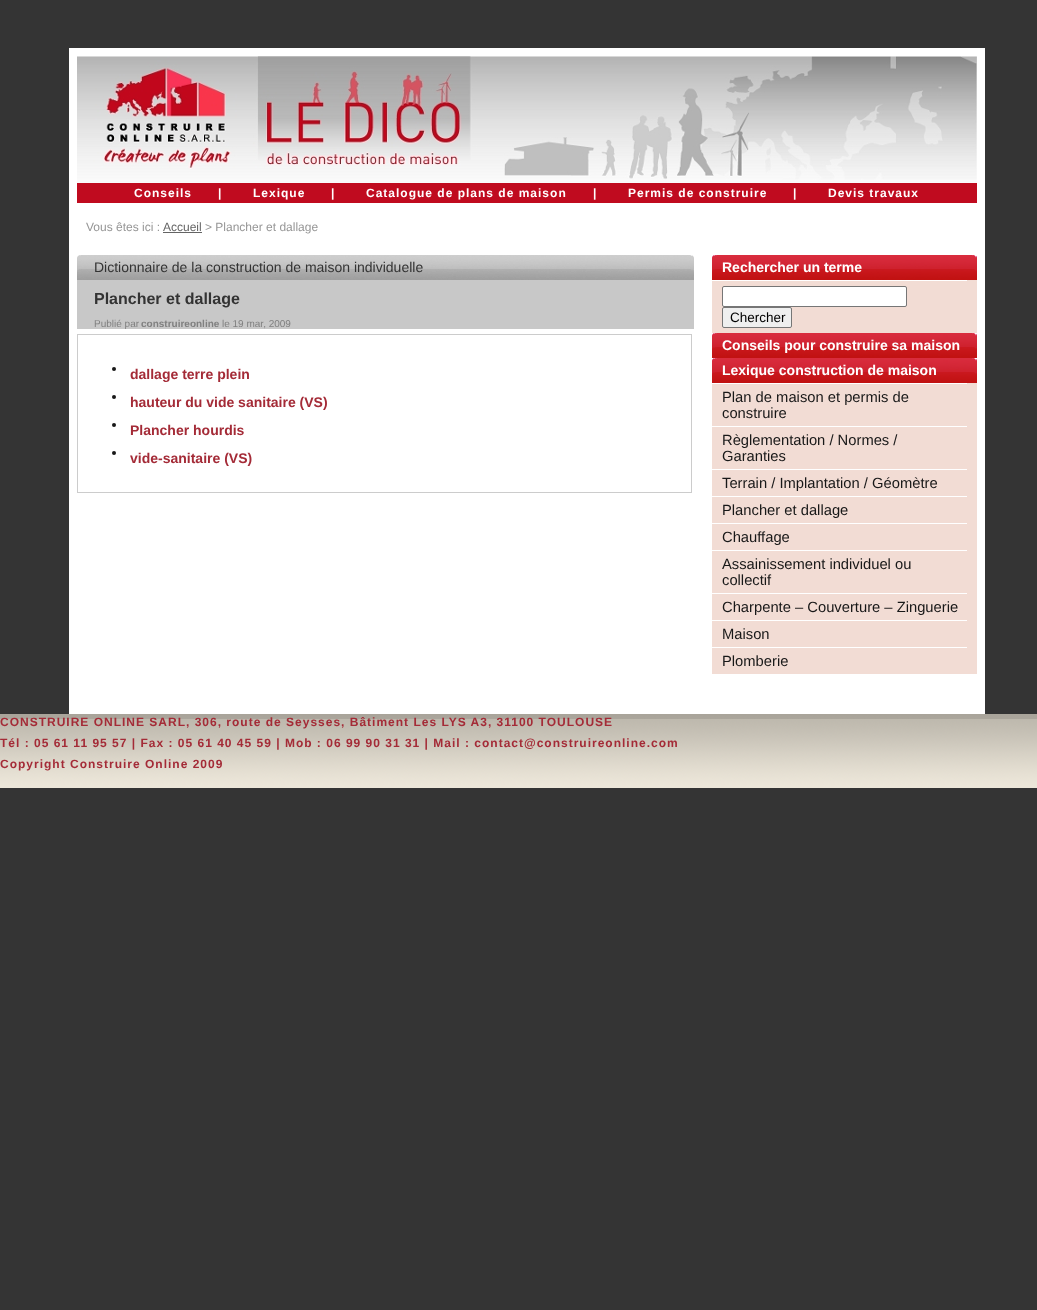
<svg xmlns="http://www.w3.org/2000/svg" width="1037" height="1310">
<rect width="100%" height="100%" fill="#343434"/>
<rect x="69" y="48" width="916" height="666" fill="#fff"/>
<image x="77" y="56" width="900" height="127" href="media/1.png"/>
<rect x="77" y="183" width="900" height="20" fill="#c00b1f"/>
<text x="134" y="197" style="font-family:Liberation Sans;font-size:12px;font-weight:bold;letter-spacing:1px;fill:#fff">Conseils</text>
<text x="218" y="197" style="font-family:Liberation Sans;font-size:12px;font-weight:bold;letter-spacing:1px;fill:#fff">|</text>
<text x="253" y="197" style="font-family:Liberation Sans;font-size:12px;font-weight:bold;letter-spacing:1px;fill:#fff">Lexique</text>
<text x="331" y="197" style="font-family:Liberation Sans;font-size:12px;font-weight:bold;letter-spacing:1px;fill:#fff">|</text>
<text x="366" y="197" style="font-family:Liberation Sans;font-size:12px;font-weight:bold;letter-spacing:1px;fill:#fff">Catalogue de plans de maison</text>
<text x="593" y="197" style="font-family:Liberation Sans;font-size:12px;font-weight:bold;letter-spacing:1px;fill:#fff">|</text>
<text x="628" y="197" style="font-family:Liberation Sans;font-size:12px;font-weight:bold;letter-spacing:1px;fill:#fff">Permis de construire</text>
<text x="793" y="197" style="font-family:Liberation Sans;font-size:12px;font-weight:bold;letter-spacing:1px;fill:#fff">|</text>
<text x="828" y="197" style="font-family:Liberation Sans;font-size:12px;font-weight:bold;letter-spacing:1px;fill:#fff">Devis travaux</text>
<text x="86" y="231" style="font-family:Liberation Sans;font-size:12px;fill:#969696">Vous êtes ici :</text>
<text x="163" y="231" style="font-family:Liberation Sans;font-size:12px;fill:#646464">Accueil</text>
<rect x="163" y="232" width="39" height="1" fill="#646464"/>
<text x="205" y="231" style="font-family:Liberation Sans;font-size:12px;fill:#969696">&gt; Plancher et dallage</text>
<image x="77" y="255" width="617" height="25" href="media/2.png"/>
<text x="94" y="272" style="font-family:Liberation Sans;font-size:14px;fill:#333">Dictionnaire de la construction de maison individuelle</text>
<rect x="77" y="280" width="617" height="49" fill="#c8c8c8"/>
<text x="94" y="304" style="font-family:Liberation Sans;font-size:16px;font-weight:bold;fill:#333">Plancher et dallage</text>
<text x="94" y="327" style="font-family:Liberation Sans;font-size:10px;fill:#808080">Publié par</text>
<text x="141" y="327" style="font-family:Liberation Sans;font-size:10px;font-weight:bold;fill:#808080">construireonline</text>
<text x="222" y="327" style="font-family:Liberation Sans;font-size:10px;fill:#808080">le 19 mar, 2009</text>
<rect x="77.5" y="334.5" width="614" height="158" fill="none" stroke="#ccc"/>
<circle cx="114" cy="369" r="2" fill="#181818"/>
<text x="130" y="379" style="font-family:Liberation Sans;font-size:14px;font-weight:bold;fill:#a42b37">dallage terre plein</text>
<circle cx="114" cy="397" r="2" fill="#181818"/>
<text x="130" y="407" style="font-family:Liberation Sans;font-size:14px;font-weight:bold;fill:#a42b37">hauteur du vide sanitaire (VS)</text>
<circle cx="114" cy="425" r="2" fill="#181818"/>
<text x="130" y="435" style="font-family:Liberation Sans;font-size:14px;font-weight:bold;fill:#a42b37">Plancher hourdis</text>
<circle cx="114" cy="453" r="2" fill="#181818"/>
<text x="130" y="463" style="font-family:Liberation Sans;font-size:14px;font-weight:bold;fill:#a42b37">vide-sanitaire (VS)</text>
<rect x="712" y="280" width="265" height="394" fill="#f2dcd4"/>
<image x="712" y="255" width="265" height="25" href="media/3.png"/>
<text x="722" y="272" style="font-family:Liberation Sans;font-size:14px;font-weight:bold;fill:#fff">Rechercher un terme</text>
<rect x="712" y="280" width="255" height="1" fill="#fff"/>
<rect x="722.5" y="286.5" width="184" height="20" rx="1.5" fill="#fff" stroke="#767676"/>
<rect x="722.5" y="307.5" width="69" height="20" rx="1.5" fill="#efefef" stroke="#767676"/>
<text x="730" y="322" style="font-family:Liberation Sans;font-size:13.5px;fill:#000">Chercher</text>
<image x="712" y="333" width="265" height="25" href="media/3.png"/>
<text x="722" y="350" style="font-family:Liberation Sans;font-size:14px;font-weight:bold;fill:#fff">Conseils pour construire sa maison</text>
<image x="712" y="358" width="265" height="25" href="media/3.png"/>
<text x="722" y="375" style="font-family:Liberation Sans;font-size:14px;font-weight:bold;fill:#fff">Lexique construction de maison</text>
<rect x="712" y="383" width="255" height="1" fill="#fff"/>
<text x="722" y="402" style="font-family:Liberation Sans;font-size:14.75px;fill:#181818">Plan de maison et permis de</text>
<text x="722" y="418" style="font-family:Liberation Sans;font-size:14.75px;fill:#181818">construire</text>
<rect x="712" y="426" width="255" height="1" fill="#fff"/>
<text x="722" y="445" style="font-family:Liberation Sans;font-size:14.75px;fill:#181818">Règlementation / Normes /</text>
<text x="722" y="461" style="font-family:Liberation Sans;font-size:14.75px;fill:#181818">Garanties</text>
<rect x="712" y="469" width="255" height="1" fill="#fff"/>
<text x="722" y="488" style="font-family:Liberation Sans;font-size:14.75px;fill:#181818">Terrain / Implantation / Géomètre</text>
<rect x="712" y="496" width="255" height="1" fill="#fff"/>
<text x="722" y="515" style="font-family:Liberation Sans;font-size:14.75px;fill:#181818">Plancher et dallage</text>
<rect x="712" y="523" width="255" height="1" fill="#fff"/>
<text x="722" y="542" style="font-family:Liberation Sans;font-size:14.75px;fill:#181818">Chauffage</text>
<rect x="712" y="550" width="255" height="1" fill="#fff"/>
<text x="722" y="569" style="font-family:Liberation Sans;font-size:14.75px;fill:#181818">Assainissement individuel ou</text>
<text x="722" y="585" style="font-family:Liberation Sans;font-size:14.75px;fill:#181818">collectif</text>
<rect x="712" y="593" width="255" height="1" fill="#fff"/>
<text x="722" y="612" style="font-family:Liberation Sans;font-size:14.75px;fill:#181818">Charpente – Couverture – Zinguerie</text>
<rect x="712" y="620" width="255" height="1" fill="#fff"/>
<text x="722" y="639" style="font-family:Liberation Sans;font-size:14.75px;fill:#181818">Maison</text>
<rect x="712" y="647" width="255" height="1" fill="#fff"/>
<text x="722" y="666" style="font-family:Liberation Sans;font-size:14.75px;fill:#181818">Plomberie</text>
<image x="0" y="714" width="1037" height="74" href="media/4.png"/>
<text x="0" y="726" style="font-family:Liberation Sans;font-size:12px;font-weight:bold;letter-spacing:1px;fill:#a42b37">CONSTRUIRE ONLINE SARL, 306, route de Seysses, Bâtiment Les LYS A3, 31100 TOULOUSE</text>
<text x="0" y="747" style="font-family:Liberation Sans;font-size:12px;font-weight:bold;letter-spacing:1px;fill:#a42b37">Tél : 05 61 11 95 57 | Fax : 05 61 40 45 59 | Mob : 06 99 90 31 31 | Mail : contact@construireonline.com</text>
<text x="0" y="768" style="font-family:Liberation Sans;font-size:12px;font-weight:bold;letter-spacing:1px;fill:#a42b37">Copyright Construire Online 2009</text>
</svg>
